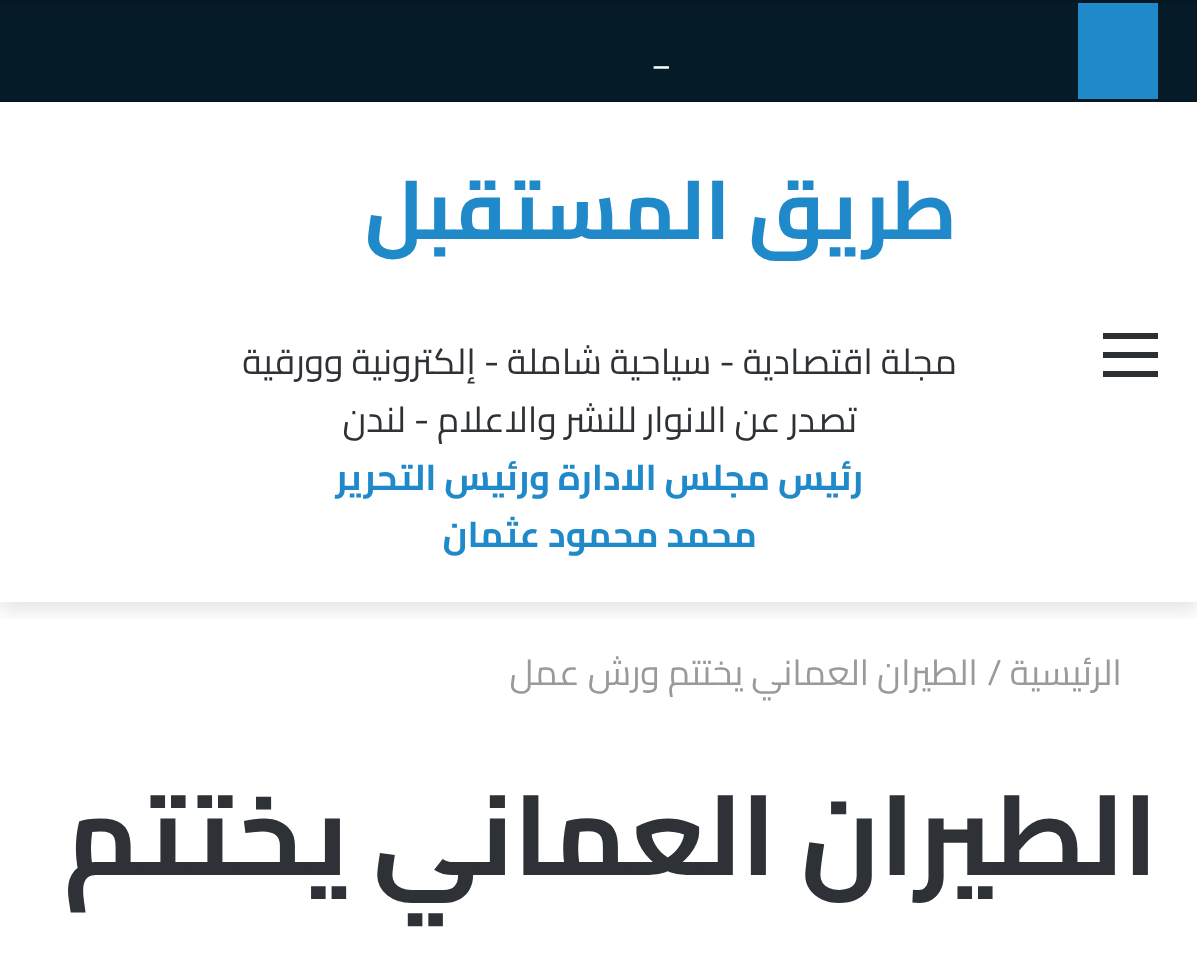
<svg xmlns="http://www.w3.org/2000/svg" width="1197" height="959">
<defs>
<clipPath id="clip1"><rect x="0" y="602" width="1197" height="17"/></clipPath>
</defs>
<rect width="100%" height="100%" fill="#fff"/>
<g clip-path="url(#clip1)">
<rect y="110" width="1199" height="501" fill="#0000001a" filter="blur(9.5px)"/>
</g>
<rect y="3" width="1197" height="96" fill="#061b28"/>
<rect width="1197" height="3" fill="#051824"/>
<rect y="99" width="1197" height="3" fill="#051824"/>
<rect x="1078" y="3" width="80" height="96" fill="#1f89ca"/>
<text x="650" y="63" style="font-family:Cairo;font-size:35.75px;fill:#fff">_</text>
<rect x="1103" y="352" width="55" height="6" fill="#2c2f34"/>
<rect x="1103" y="333" width="55" height="6" fill="#2c2f34"/>
<rect x="1103" y="371" width="55" height="6" fill="#2c2f34"/>
<text x="957" y="239" style="font-family:Cairo;font-size:82.5px;font-weight:bold;direction:rtl;fill:#1f89ca">طريق المستقبل</text>
<text x="957" y="374" style="font-family:Cairo;font-size:35.75px;direction:rtl;fill:#2e3136">مجلة اقتصادية - سياحية شاملة - إلكترونية وورقية</text>
<text x="857" y="432" style="font-family:Cairo;font-size:35.75px;direction:rtl;fill:#2e3136">تصدر عن الانوار للنشر والاعلام - لندن</text>
<text x="863" y="490" style="font-family:Cairo;font-size:35.75px;font-weight:bold;direction:rtl;fill:#1f89ca">رئيس مجلس الادارة ورئيس التحرير</text>
<text x="757" y="547" style="font-family:Cairo;font-size:35.75px;font-weight:bold;direction:rtl;fill:#1f89ca">محمد محمود عثمان</text>
<text x="1122" y="685" style="font-family:Cairo;font-size:35.75px;direction:rtl;fill:#9a9a9a">الرئيسية</text>
<text x="987" y="685" style="font-family:Cairo;font-size:35.75px;fill:#9a9a9a">/</text>
<text x="978" y="685" style="font-family:Cairo;font-size:35.75px;direction:rtl;fill:#9a9a9a">الطيران العماني يختتم ورش عمل</text>
<text x="1158" y="875" style="font-family:Cairo;font-size:112.75px;font-weight:bold;direction:rtl;fill:#2e3136">الطيران العماني يختتم</text>
</svg>
